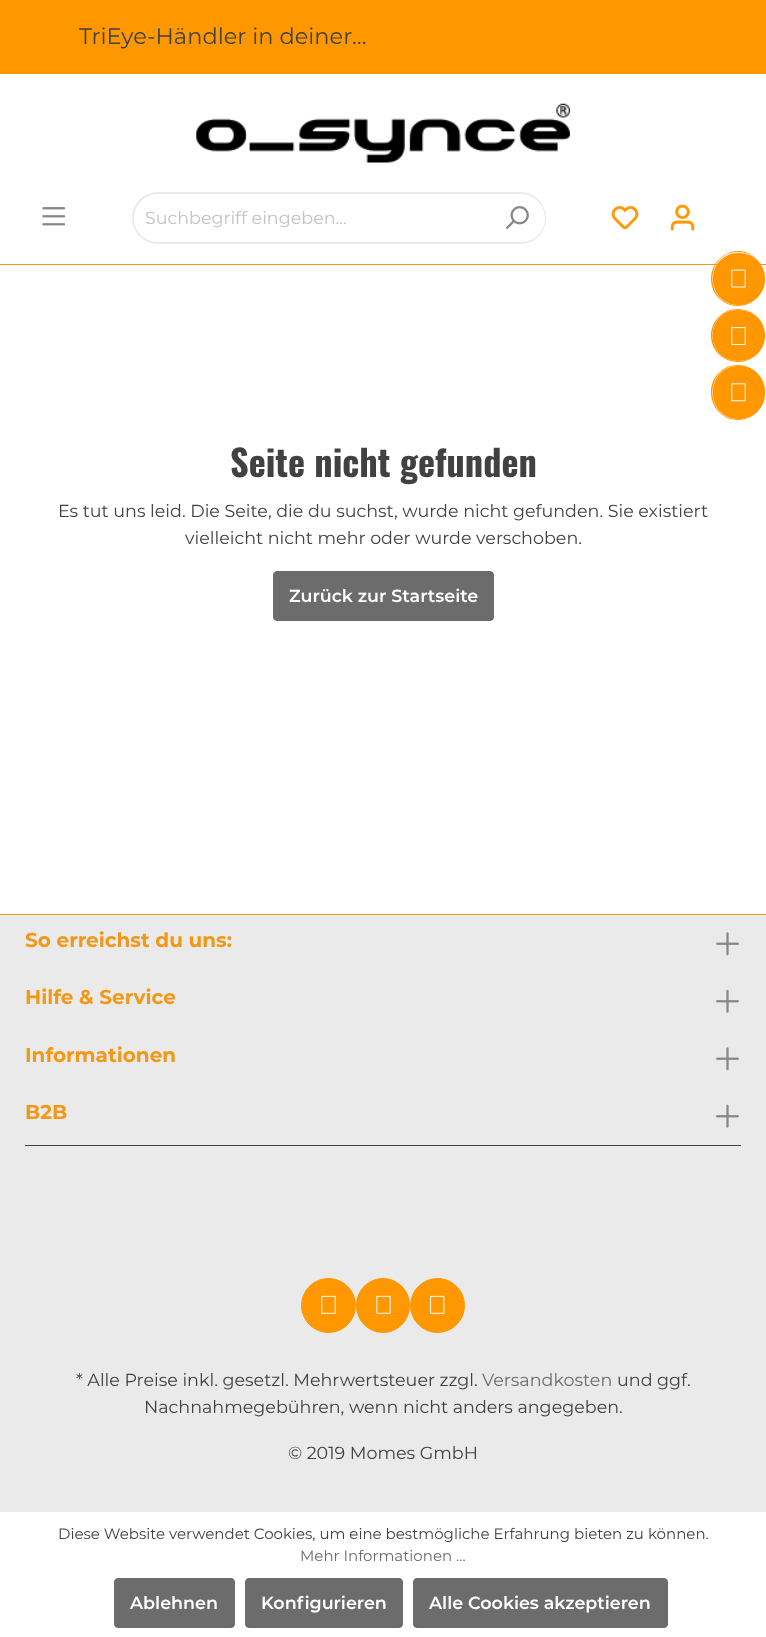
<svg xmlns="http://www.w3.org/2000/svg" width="766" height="1637">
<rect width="100%" height="100%" fill="#fff"/>
<rect width="766" height="74" fill="#ff9800"/>
<text x="79" y="44" style="font-family:Montserrat;font-size:22.5px;fill:#414141">TriEye-Händler in deiner…</text>
<image x="196" y="103" width="374" height="60" href="media/1.png"/>
<image x="42" y="207" width="24" height="19" href="media/2.png"/>
<path d="M158 192h331v52h-331c-14 0-26-12-26-26c0-14 12-26 26-26zm0 2h331v48h-331c-13 0-24-10-24-24c0-13 11-24 24-24z" fill="#eaeaea" fill-rule="evenodd"/>
<text x="145" y="224" style="font-family:Montserrat;font-size:17.5px;fill:#c3c3c3">Suchbegriff eingeben...</text>
<path d="M488 193h32.5c14 0 25.5 11.5 25.5 25.5c0 14-11.5 25.5-25.5 25.5h-32.5z" fill="#fff"/>
<path d="M488 192h33c14 0 25 12 25 26c0 14-11 26-25 26h-33zm0 2h33c13 0 24 11 24 24c0 14-11 24-24 24h-33z" fill="#eaeaea" fill-rule="evenodd"/>
<image x="506" y="206" width="23" height="23" href="media/3.png"/>
<image x="611" y="206" width="28" height="24" href="media/4.png"/>
<image x="670" y="204" width="25" height="27" href="media/5.png"/>
<rect y="264" width="766" height="1" fill="#f19816"/>
<path d="M738 253h1c14.5 0 26 11.5 26 26c0 14.5-11.5 26-26 26h-1c-14 0-25-11-25-25v-2c0-14 11-25 25-25z" fill="#ff9800"/>
<path d="M738 251c15 0 27 13 27 28c0 15-12 27-27 27c-15 0-27-12-27-27c0-15 12-28 27-28zm0 1c26 0 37 34 15 49c-4 2-10 4-15 4c-34 0-34-53 0-53z" fill="#ff9800" fill-rule="evenodd"/>
<image x="731" y="269" width="15" height="19" href="media/6.png"/>
<path d="M738 310c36 0 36 51 0 51c-34 0-34-51 0-51z" fill="#ff9800"/>
<path d="M738 309c15 0 27 12 27 27c0 14-12 26-27 26c-15 0-27-12-27-26c0-15 12-27 27-27zm0 1c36 0 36 51 0 51c-34 0-34-51 0-51z" fill="#ff9800" fill-rule="evenodd"/>
<image x="731" y="327" width="15" height="18" href="media/7.png"/>
<path d="M738 366h1c14.5 0 26 11.5 26 26v1c0 14.5-11.5 26-26 26h-1c-14 0-25-11-25-25v-3c0-14 11-25 25-25z" fill="#ff9800"/>
<path d="M738 365c15 0 27 12 27 27c0 16-12 28-27 28c-15 0-27-12-27-28c0-15 12-27 27-27zm0 1c5 0 11 2 15 5c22 14 11 48-15 48c-34 0-34-53 0-53z" fill="#ff9800" fill-rule="evenodd"/>
<image x="731" y="383" width="15" height="19" href="media/8.png"/>
<text x="230" y="477" style="font-family:Oswald;font-size:36.25px;font-weight:bold;fill:#414141">Seite nicht gefunden</text>
<text x="58" y="517" style="font-family:Montserrat;font-size:17.5px;fill:#414141">Es tut uns leid. Die Seite, die du suchst, wurde nicht gefunden. Sie existiert</text>
<text x="185" y="544" style="font-family:Montserrat;font-size:17.5px;fill:#414141">vielleicht nicht mehr oder wurde verschoben.</text>
<rect x="273.5" y="571.5" width="220" height="49" rx="3.5" fill="#6c6c6c" stroke="#6c6c6c"/>
<text x="289" y="602" style="font-family:Montserrat;font-size:17.5px;font-weight:600;fill:#fff">Zurück zur Startseite</text>
<rect y="915" width="766" height="597" fill="#eaeaea"/>
<rect y="914" width="766" height="1" fill="#f19816"/>
<text x="25" y="947" style="font-family:Montserrat;font-size:20px;font-weight:bold;fill:#f19816">So erreichst du uns:</text>
<image x="716" y="932" width="23" height="24" href="media/9.png"/>
<text x="25" y="1004" style="font-family:Montserrat;font-size:20px;font-weight:bold;fill:#f19816">Hilfe &amp; Service</text>
<image x="716" y="989" width="23" height="24" href="media/10.png"/>
<text x="25" y="1062" style="font-family:Montserrat;font-size:20px;font-weight:bold;fill:#f19816">Informationen</text>
<image x="716" y="1047" width="23" height="24" href="media/9.png"/>
<text x="25" y="1119" style="font-family:Montserrat;font-size:20px;font-weight:bold;fill:#f19816">B2B</text>
<image x="716" y="1104" width="23" height="24" href="media/10.png"/>
<rect x="25" y="1145" width="716" height="1" fill="#414141"/>
<circle cx="328.5" cy="1305.5" r="27" fill="#ff9800" stroke="#ff9800"/>
<image x="321" y="1295" width="15" height="19" href="media/11.png"/>
<rect x="356.5" y="1278.5" width="53" height="54" rx="26.5" fill="#ff9800" stroke="#ff9800"/>
<image x="376" y="1295" width="15" height="19" href="media/11.png"/>
<circle cx="437.5" cy="1305.5" r="27" fill="#ff9800" stroke="#ff9800"/>
<image x="430" y="1295" width="15" height="19" href="media/12.png"/>
<text x="76" y="1386" style="font-family:Montserrat;font-size:17.5px;fill:#414141">* Alle Preise inkl. gesetzl. Mehrwertsteuer zzgl.</text>
<text x="482" y="1386" style="font-family:Montserrat;font-size:17.5px;fill:#6c6c6c">Versandkosten</text>
<text x="617" y="1386" style="font-family:Montserrat;font-size:17.5px;fill:#414141">und ggf.</text>
<text x="144" y="1413" style="font-family:Montserrat;font-size:17.5px;fill:#414141">Nachnahmegebühren, wenn nicht anders angegeben.</text>
<text x="288" y="1459" style="font-family:Montserrat;font-size:17.5px;fill:#414141">© 2019 Momes GmbH</text>
<text x="58" y="1539" style="font-family:Montserrat;font-size:15px;fill:#414141">Diese Website verwendet Cookies, um eine bestmögliche Erfahrung bieten zu können.</text>
<text x="300" y="1561" style="font-family:Montserrat;font-size:15px;fill:#6c6c6c">Mehr Informationen ...</text>
<rect x="114.5" y="1578.5" width="120" height="49" rx="3.5" fill="#6c6c6c" stroke="#6c6c6c"/>
<text x="130" y="1609" style="font-family:Montserrat;font-size:17.5px;font-weight:600;fill:#fff">Ablehnen</text>
<rect x="245.5" y="1578.5" width="157" height="49" rx="3.5" fill="#6c6c6c" stroke="#6c6c6c"/>
<text x="261" y="1609" style="font-family:Montserrat;font-size:17.5px;font-weight:600;fill:#fff">Konfigurieren</text>
<rect x="413.5" y="1578.5" width="254" height="49" rx="3.5" fill="#6c6c6c" stroke="#6c6c6c"/>
<text x="429" y="1609" style="font-family:Montserrat;font-size:17.5px;font-weight:600;fill:#fff">Alle Cookies akzeptieren</text>
</svg>
